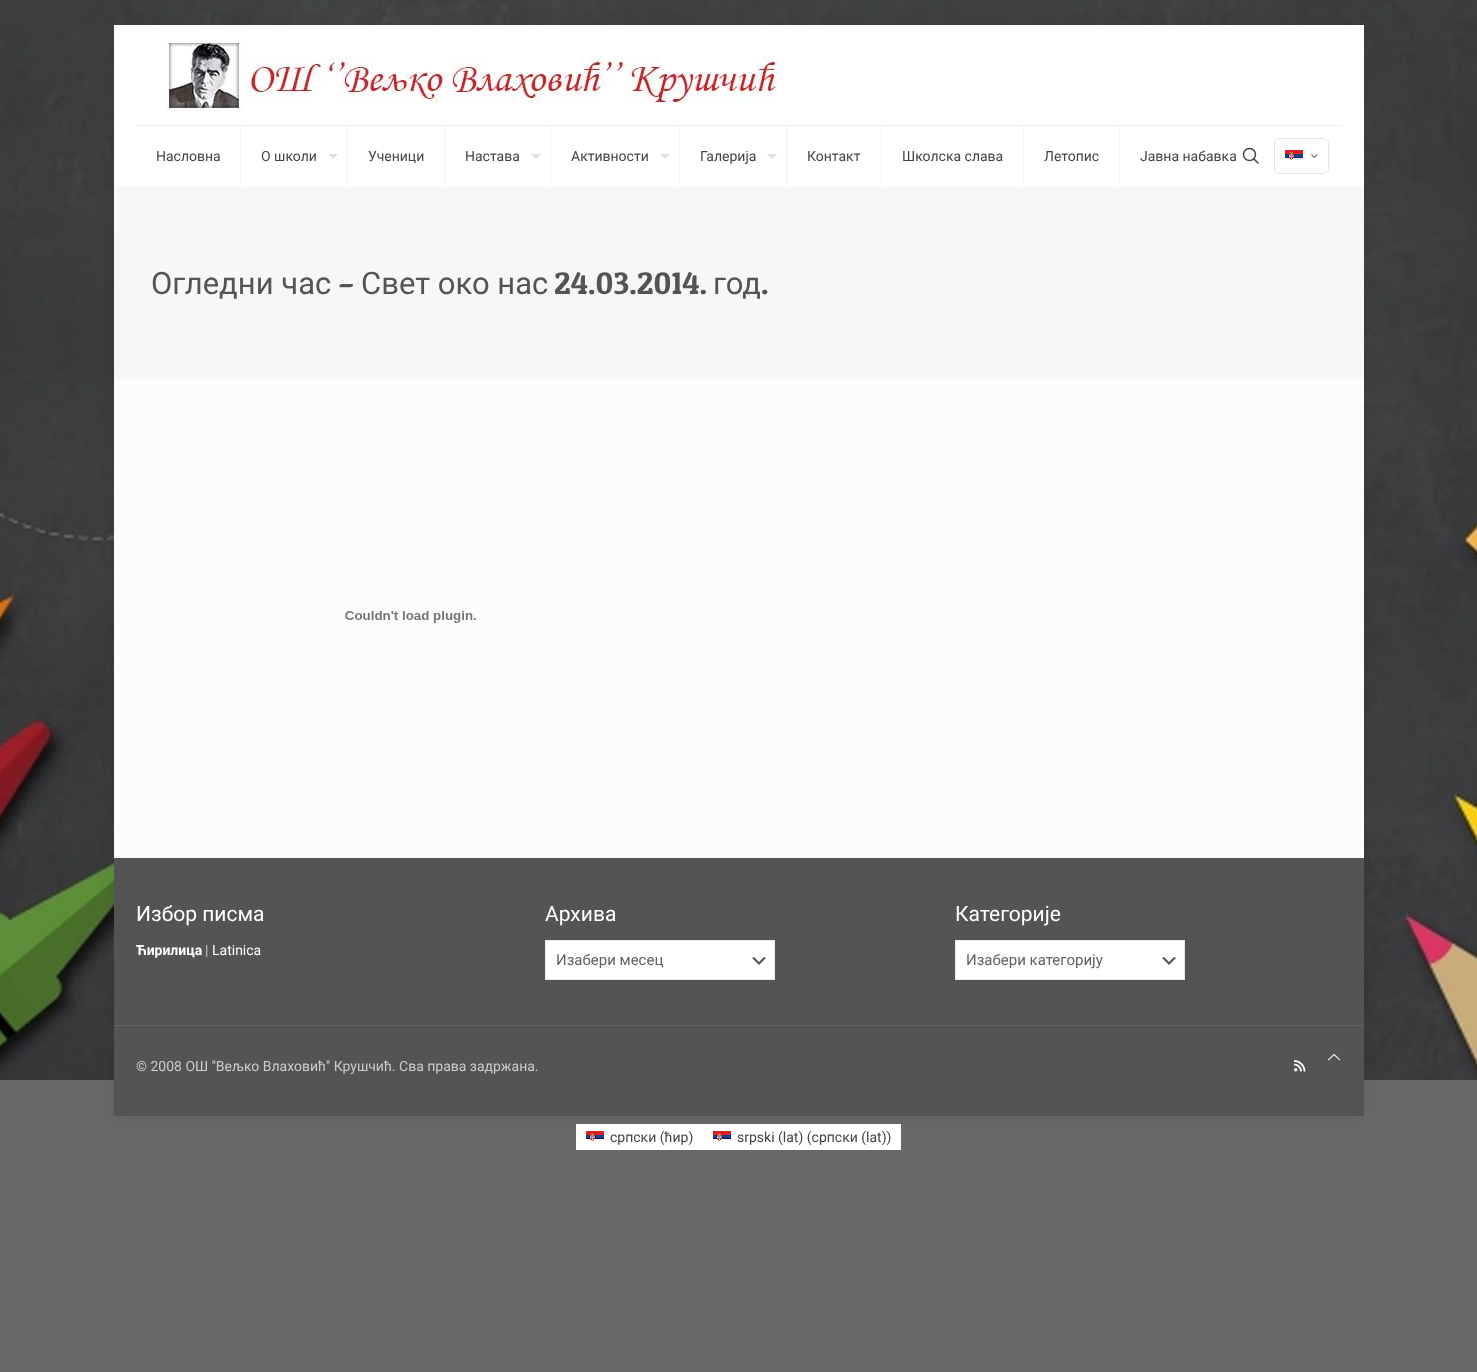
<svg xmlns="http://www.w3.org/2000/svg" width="1477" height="1372">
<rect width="100%" height="100%" fill="#696767"/>
<image x="0" y="0" width="1477" height="1080" href="media/1.png"/>
<rect x="576" y="1124" width="325" height="26" fill="#fff"/>
<image x="586" y="1131" width="18" height="10" href="media/3.png"/>
<image x="713" y="1131" width="18" height="10" href="media/3.png"/>
<rect x="114" y="25" width="1250" height="1091" fill="#0000000f" filter="blur(7.5px)"/>
<rect x="114" y="379" width="1250" height="479" fill="#fcfcfc"/>
<rect x="114" y="25" width="1250" height="162" fill="#fff"/>
<rect x="136" y="125" width="1206" height="1" fill="#ebebeb"/>
<image x="166" y="40" width="616" height="70" href="media/2.png"/>
<rect x="240" y="126" width="1" height="60" fill="#f2f2f2"/>
<text x="156" y="161" style="font-family:Roboto;font-size:14px;fill:#444">Насловна</text>
<rect x="347" y="126" width="1" height="60" fill="#f2f2f2"/>
<text x="261" y="161" style="font-family:Roboto;font-size:14px;fill:#444">О школи</text>
<path d="M328 154h10l-5 5z" fill="#e0e0e0"/>
<rect x="444" y="126" width="1" height="60" fill="#f2f2f2"/>
<text x="368" y="161" style="font-family:Roboto;font-size:14px;fill:#444">Ученици</text>
<rect x="550" y="126" width="1" height="60" fill="#f2f2f2"/>
<text x="465" y="161" style="font-family:Roboto;font-size:14px;fill:#444">Настава</text>
<path d="M531 154h10l-5 5z" fill="#e0e0e0"/>
<rect x="679" y="126" width="1" height="60" fill="#f2f2f2"/>
<text x="571" y="161" style="font-family:Roboto;font-size:14px;fill:#444">Активности</text>
<path d="M660 154h10l-5 5z" fill="#e0e0e0"/>
<rect x="786" y="126" width="1" height="60" fill="#f2f2f2"/>
<text x="700" y="161" style="font-family:Roboto;font-size:14px;fill:#444">Галерија</text>
<path d="M767 154h10l-5 5z" fill="#e0e0e0"/>
<rect x="881" y="126" width="1" height="60" fill="#f2f2f2"/>
<text x="807" y="161" style="font-family:Roboto;font-size:14px;fill:#444">Контакт</text>
<rect x="1023" y="126" width="1" height="60" fill="#f2f2f2"/>
<text x="902" y="161" style="font-family:Roboto;font-size:14px;fill:#444">Школска слава</text>
<rect x="1119" y="126" width="1" height="60" fill="#f2f2f2"/>
<text x="1044" y="161" style="font-family:Roboto;font-size:14px;fill:#444">Летопис</text>
<text x="1140" y="161" style="font-family:Roboto;font-size:14px;fill:#444">Јавна набавка</text>
<circle cx="1249.5" cy="154.5" r="6" fill="none" stroke="#444" stroke-width="1.5"/>
<path d="M1253.5 158.5l5 5" fill="none" stroke="#444" stroke-width="1.5"/>
<rect x="1274.5" y="138.5" width="54" height="35" rx="4.5" fill="none" stroke="#e6e6e6"/>
<image x="1285" y="150" width="18" height="10" href="media/3.png"/>
<image x="1311" y="154" width="7" height="4" href="media/4.png"/>
<rect x="114" y="187" width="1250" height="192" fill="#f7f7f7"/>
<text x="151" y="294" style="font-family:Roboto;font-size:31px;fill:#545454">Огледни час</text>
<text x="338" y="294" style="font-family:Patua One;font-size:31px;fill:#545454">–</text>
<text x="361" y="294" style="font-family:Roboto;font-size:31px;fill:#545454">Свет око нас</text>
<text x="554" y="294" style="font-family:Patua One;font-size:31px;fill:#545454">24.03.2014.</text>
<text x="713" y="294" style="font-family:Roboto;font-size:31px;fill:#545454">год</text>
<text x="761" y="294" style="font-family:Patua One;font-size:31px;fill:#545454">.</text>
<image x="345" y="611" width="131" height="12" href="media/5.png"/>
<rect x="114" y="858" width="1250" height="258" fill="#545454"/>
<text x="136" y="921" style="font-family:Roboto;font-size:21px;fill:#fff">Избор писма</text>
<text x="136" y="955" style="font-family:Roboto;font-size:14px;font-weight:bold;fill:#fff">Ћирилица</text>
<text x="205" y="955" style="font-family:Roboto;font-size:14px;fill:#ccc">|</text>
<text x="212" y="955" style="font-family:Roboto;font-size:14px;fill:#fff">Latinica</text>
<text x="545" y="921" style="font-family:Roboto;font-size:21px;fill:#fff">Архива</text>
<rect x="546" y="941" width="228" height="38" fill="#fff"/>
<image x="752" y="957" width="14" height="8" href="media/6.png"/>
<rect x="545.5" y="940.5" width="229" height="39" fill="none" stroke="#ebebeb"/>
<text x="556" y="965" style="font-family:Roboto;font-size:15px;fill:#626262">Изабери месец</text>
<text x="955" y="921" style="font-family:Roboto;font-size:21px;fill:#fff">Категорије</text>
<rect x="956" y="941" width="228" height="38" fill="#fff"/>
<image x="1162" y="957" width="14" height="8" href="media/6.png"/>
<rect x="955.5" y="940.5" width="229" height="39" fill="none" stroke="#ebebeb"/>
<text x="966" y="965" style="font-family:Roboto;font-size:15px;fill:#626262">Изабери категорију</text>
<rect x="114" y="1025" width="1250" height="1" fill="#656565"/>
<image x="1328" y="1053" width="12" height="8" href="media/7.png"/>
<text x="136" y="1071" style="font-family:Roboto;font-size:14px;fill:#ccc">© 2008 ОШ ''Вељко Влаховић'' Крушчић. Сва права задржана.</text>
<image x="1294" y="1060" width="12" height="12" href="media/8.png"/>
<text x="610" y="1142" style="font-family:Roboto;font-size:14px;fill:#444">српски (ћир)</text>
<text x="737" y="1142" style="font-family:Roboto;font-size:14px;fill:#444">srpski (lat) (српски (lat))</text>
</svg>
